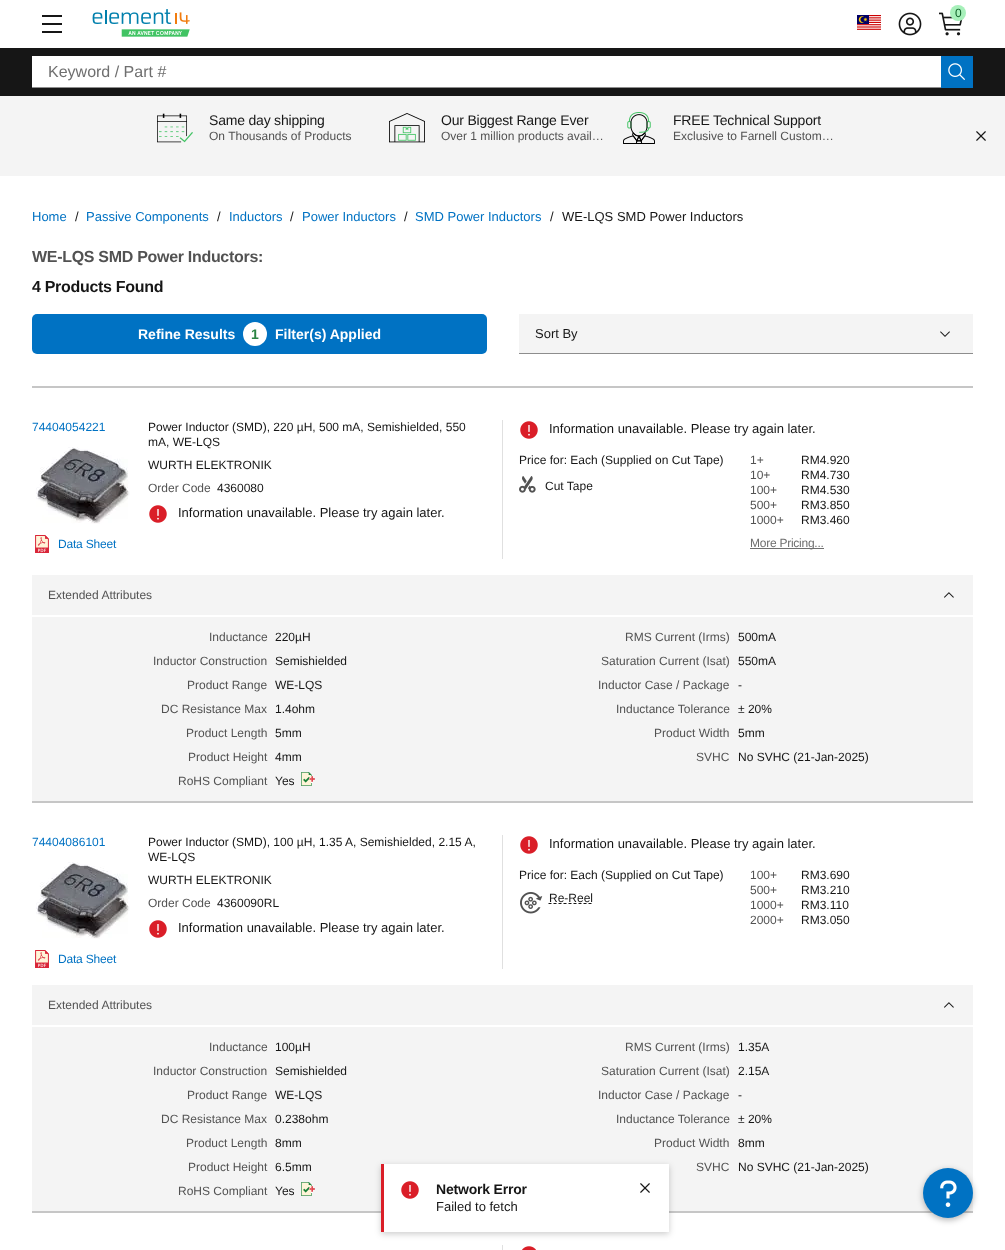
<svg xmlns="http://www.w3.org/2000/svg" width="1005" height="1250">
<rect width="100%" height="100%" fill="#fff"/>
<rect x="42" y="15" width="20" height="2" fill="#161616"/>
<rect x="42" y="23" width="20" height="2" fill="#161616"/>
<rect x="42" y="31" width="20" height="2" fill="#161616"/>
<image x="92" y="9" width="98" height="28" href="media/1.png"/>
<image x="857" y="15" width="24" height="15" href="media/2.png"/>
<image x="898" y="12" width="24" height="24" href="media/3.png"/>
<image x="939" y="12" width="24" height="24" href="media/4.png"/>
<circle cx="958" cy="13" r="8" fill="#a7f0ba"/>
<text x="955" y="17" style="font-family:Liberation Sans;font-size:12px;fill:#0e6027">0</text>
<rect y="48" width="1005" height="48" fill="#161616"/>
<rect x="32" y="56" width="909" height="31" fill="#fff"/>
<rect x="32" y="87" width="909" height="1" fill="#8d8d8d"/>
<text x="48" y="77" style="font-family:Liberation Sans;font-size:16px;fill:#6f6f6f">Keyword / Part #</text>
<rect x="941" y="56" width="32" height="32" fill="#0072c3"/>
<image x="948" y="63" width="17" height="17" href="media/5.png"/>
<rect y="96" width="1005" height="80" fill="#f4f4f4"/>
<image x="157" y="113" width="36" height="30" href="media/6.png"/>
<text x="209" y="125" style="font-family:Liberation Sans;font-size:14px;letter-spacing:-0.2px;fill:#161616">Same day shipping</text>
<text x="209" y="140" style="font-family:Liberation Sans;font-size:12px;fill:#525252">On Thousands of Products</text>
<image x="389" y="113" width="36" height="30" href="media/7.png"/>
<text x="441" y="125" style="font-family:Liberation Sans;font-size:14px;letter-spacing:-0.2px;fill:#161616">Our Biggest Range Ever</text>
<text x="441" y="140" style="font-family:Liberation Sans;font-size:12px;fill:#525252">Over 1 million products avail…</text>
<image x="623" y="112" width="32" height="32" href="media/8.png"/>
<text x="673" y="125" style="font-family:Liberation Sans;font-size:14px;letter-spacing:-0.2px;fill:#161616">FREE Technical Support</text>
<text x="673" y="140" style="font-family:Liberation Sans;font-size:12px;fill:#525252">Exclusive to Farnell Custom…</text>
<image x="976" y="131" width="10" height="10" href="media/9.png"/>
<text x="32" y="221" style="font-family:Liberation Sans;font-size:13px;fill:#0072c3">Home</text>
<text x="75" y="221" style="font-family:Liberation Sans;font-size:13px;fill:#161616">/</text>
<text x="86" y="221" style="font-family:Liberation Sans;font-size:13px;fill:#0072c3">Passive Components</text>
<text x="217" y="221" style="font-family:Liberation Sans;font-size:13px;fill:#161616">/</text>
<text x="229" y="221" style="font-family:Liberation Sans;font-size:13px;fill:#0072c3">Inductors</text>
<text x="290" y="221" style="font-family:Liberation Sans;font-size:13px;fill:#161616">/</text>
<text x="302" y="221" style="font-family:Liberation Sans;font-size:13px;fill:#0072c3">Power Inductors</text>
<text x="404" y="221" style="font-family:Liberation Sans;font-size:13px;fill:#161616">/</text>
<text x="415" y="221" style="font-family:Liberation Sans;font-size:13px;fill:#0072c3">SMD Power Inductors</text>
<text x="550" y="221" style="font-family:Liberation Sans;font-size:13px;fill:#161616">/</text>
<text x="562" y="221" style="font-family:Liberation Sans;font-size:13px;fill:#161616">WE-LQS SMD Power Inductors</text>
<text x="32" y="262" style="font-family:Liberation Sans;font-size:16px;font-weight:bold;letter-spacing:-0.3px;fill:#525252">WE-LQS SMD Power Inductors:</text>
<text x="32" y="292" style="font-family:Liberation Sans;font-size:16px;font-weight:bold;letter-spacing:-0.3px;fill:#161616">4 Products Found</text>
<rect x="32" y="314" width="455" height="40" rx="5" fill="#0072c3"/>
<text x="138" y="339" style="font-family:Liberation Sans;font-size:14px;font-weight:bold;fill:#fff">Refine Results</text>
<circle cx="255" cy="334" r="12" fill="#fff"/>
<text x="251" y="339" style="font-family:Liberation Sans;font-size:14px;font-weight:bold;fill:#2a8442">1</text>
<text x="275" y="339" style="font-family:Liberation Sans;font-size:14px;font-weight:bold;fill:#fff">Filter(s) Applied</text>
<rect x="519" y="314" width="454" height="39" fill="#f4f4f4"/>
<rect x="519" y="353" width="454" height="1" fill="#8d8d8d"/>
<text x="535" y="338" style="font-family:Liberation Sans;font-size:13px;fill:#161616">Sort By</text>
<image x="940" y="331" width="10" height="6" href="media/10.png"/>
<rect x="32" y="386" width="941" height="2" fill="#c6c6c6"/>
<text x="32" y="431" style="font-family:Liberation Sans;font-size:12px;fill:#0072c3">74404054221</text>
<image x="36" y="447" width="94" height="77" href="media/11.png"/>
<image x="35" y="535" width="14" height="18" href="media/12.png"/>
<text x="58" y="548" style="font-family:Liberation Sans;font-size:12px;letter-spacing:-0.2px;fill:#0072c3">Data Sheet</text>
<rect x="502" y="420" width="1" height="139" fill="#e0e0e0"/>
<text x="148" y="431" style="font-family:Liberation Sans;font-size:12px;fill:#161616">Power Inductor (SMD), 220 µH, 500 mA, Semishielded, 550</text>
<text x="148" y="446" style="font-family:Liberation Sans;font-size:12px;fill:#161616">mA, WE-LQS</text>
<text x="148" y="469" style="font-family:Liberation Sans;font-size:12px;fill:#161616">WURTH ELEKTRONIK</text>
<text x="148" y="492" style="font-family:Liberation Sans;font-size:12px;fill:#525252">Order Code</text>
<text x="217" y="492" style="font-family:Liberation Sans;font-size:12px;fill:#161616">4360080</text>
<image x="149" y="505" width="18" height="18" href="media/13.png"/>
<text x="178" y="517" style="font-family:Liberation Sans;font-size:13px;fill:#161616">Information unavailable. Please try again later.</text>
<image x="520" y="421" width="18" height="18" href="media/13.png"/>
<text x="549" y="433" style="font-family:Liberation Sans;font-size:13px;fill:#161616">Information unavailable. Please try again later.</text>
<text x="519" y="464" style="font-family:Liberation Sans;font-size:12px;fill:#161616">Price for: Each (Supplied on Cut Tape)</text>
<image x="519" y="476" width="17" height="17" href="media/14.png"/>
<text x="545" y="490" style="font-family:Liberation Sans;font-size:12px;fill:#161616">Cut Tape</text>
<text x="750" y="464" style="font-family:Liberation Sans;font-size:12px;fill:#525252">1+</text>
<text x="801" y="464" style="font-family:Liberation Sans;font-size:12px;fill:#161616">RM4.920</text>
<text x="750" y="479" style="font-family:Liberation Sans;font-size:12px;fill:#525252">10+</text>
<text x="801" y="479" style="font-family:Liberation Sans;font-size:12px;fill:#161616">RM4.730</text>
<text x="750" y="494" style="font-family:Liberation Sans;font-size:12px;fill:#525252">100+</text>
<text x="801" y="494" style="font-family:Liberation Sans;font-size:12px;fill:#161616">RM4.530</text>
<text x="750" y="509" style="font-family:Liberation Sans;font-size:12px;fill:#525252">500+</text>
<text x="801" y="509" style="font-family:Liberation Sans;font-size:12px;fill:#161616">RM3.850</text>
<text x="750" y="524" style="font-family:Liberation Sans;font-size:12px;fill:#525252">1000+</text>
<text x="801" y="524" style="font-family:Liberation Sans;font-size:12px;fill:#161616">RM3.460</text>
<rect x="750" y="548" width="74" height="1" fill="#6f6f6f"/>
<text x="750" y="547" style="font-family:Liberation Sans;font-size:12px;letter-spacing:-0.25px;fill:#6f6f6f">More Pricing...</text>
<rect x="32" y="575" width="941" height="226" fill="#f4f4f4"/>
<text x="48" y="599" style="font-family:Liberation Sans;font-size:12px;fill:#525252">Extended Attributes</text>
<image x="944" y="592" width="10" height="6" href="media/15.png"/>
<rect x="32" y="615" width="941" height="2" fill="#fff"/>
<text x="209" y="641" style="font-family:Liberation Sans;font-size:12px;fill:#525252">Inductance</text>
<text x="275" y="641" style="font-family:Liberation Sans;font-size:12px;fill:#161616">220µH</text>
<text x="625" y="641" style="font-family:Liberation Sans;font-size:12px;fill:#525252">RMS Current (Irms)</text>
<text x="738" y="641" style="font-family:Liberation Sans;font-size:12px;fill:#161616">500mA</text>
<text x="153" y="665" style="font-family:Liberation Sans;font-size:12px;fill:#525252">Inductor Construction</text>
<text x="275" y="665" style="font-family:Liberation Sans;font-size:12px;fill:#161616">Semishielded</text>
<text x="601" y="665" style="font-family:Liberation Sans;font-size:12px;fill:#525252">Saturation Current (Isat)</text>
<text x="738" y="665" style="font-family:Liberation Sans;font-size:12px;fill:#161616">550mA</text>
<text x="187" y="689" style="font-family:Liberation Sans;font-size:12px;fill:#525252">Product Range</text>
<text x="275" y="689" style="font-family:Liberation Sans;font-size:12px;fill:#161616">WE-LQS</text>
<text x="598" y="689" style="font-family:Liberation Sans;font-size:12px;fill:#525252">Inductor Case / Package</text>
<text x="738" y="689" style="font-family:Liberation Sans;font-size:12px;fill:#161616">-</text>
<text x="161" y="713" style="font-family:Liberation Sans;font-size:12px;fill:#525252">DC Resistance Max</text>
<text x="275" y="713" style="font-family:Liberation Sans;font-size:12px;fill:#161616">1.4ohm</text>
<text x="616" y="713" style="font-family:Liberation Sans;font-size:12px;fill:#525252">Inductance Tolerance</text>
<text x="738" y="713" style="font-family:Liberation Sans;font-size:12px;fill:#161616">± 20%</text>
<text x="186" y="737" style="font-family:Liberation Sans;font-size:12px;fill:#525252">Product Length</text>
<text x="275" y="737" style="font-family:Liberation Sans;font-size:12px;fill:#161616">5mm</text>
<text x="654" y="737" style="font-family:Liberation Sans;font-size:12px;fill:#525252">Product Width</text>
<text x="738" y="737" style="font-family:Liberation Sans;font-size:12px;fill:#161616">5mm</text>
<text x="188" y="761" style="font-family:Liberation Sans;font-size:12px;fill:#525252">Product Height</text>
<text x="275" y="761" style="font-family:Liberation Sans;font-size:12px;fill:#161616">4mm</text>
<text x="696" y="761" style="font-family:Liberation Sans;font-size:12px;fill:#525252">SVHC</text>
<text x="738" y="761" style="font-family:Liberation Sans;font-size:12px;fill:#161616">No SVHC (21-Jan-2025)</text>
<text x="178" y="785" style="font-family:Liberation Sans;font-size:12px;fill:#525252">RoHS Compliant</text>
<text x="275" y="785" style="font-family:Liberation Sans;font-size:12px;fill:#161616">Yes</text>
<image x="301" y="772" width="14" height="14" href="media/16.png"/>
<rect x="32" y="801" width="941" height="2" fill="#c6c6c6"/>
<text x="32" y="846" style="font-family:Liberation Sans;font-size:12px;fill:#0072c3">74404086101</text>
<image x="36" y="862" width="94" height="77" href="media/11.png"/>
<image x="35" y="950" width="14" height="18" href="media/12.png"/>
<text x="58" y="963" style="font-family:Liberation Sans;font-size:12px;letter-spacing:-0.2px;fill:#0072c3">Data Sheet</text>
<rect x="502" y="835" width="1" height="134" fill="#e0e0e0"/>
<text x="148" y="846" style="font-family:Liberation Sans;font-size:12px;fill:#161616">Power Inductor (SMD), 100 µH, 1.35 A, Semishielded, 2.15 A,</text>
<text x="148" y="861" style="font-family:Liberation Sans;font-size:12px;fill:#161616">WE-LQS</text>
<text x="148" y="884" style="font-family:Liberation Sans;font-size:12px;fill:#161616">WURTH ELEKTRONIK</text>
<text x="148" y="907" style="font-family:Liberation Sans;font-size:12px;fill:#525252">Order Code</text>
<text x="217" y="907" style="font-family:Liberation Sans;font-size:12px;fill:#161616">4360090RL</text>
<image x="149" y="920" width="18" height="18" href="media/13.png"/>
<text x="178" y="932" style="font-family:Liberation Sans;font-size:13px;fill:#161616">Information unavailable. Please try again later.</text>
<image x="520" y="836" width="18" height="18" href="media/13.png"/>
<text x="549" y="848" style="font-family:Liberation Sans;font-size:13px;fill:#161616">Information unavailable. Please try again later.</text>
<text x="519" y="879" style="font-family:Liberation Sans;font-size:12px;fill:#161616">Price for: Each (Supplied on Cut Tape)</text>
<image x="520" y="892" width="23" height="22" href="media/17.png"/>
<text x="549" y="902" style="font-family:Liberation Sans;font-size:12px;fill:#161616">Re-Reel</text>
<path d="M548.5 903.5h44" fill="none" stroke="#161616" stroke-dasharray="3 2"/>
<text x="750" y="879" style="font-family:Liberation Sans;font-size:12px;fill:#525252">100+</text>
<text x="801" y="879" style="font-family:Liberation Sans;font-size:12px;fill:#161616">RM3.690</text>
<text x="750" y="894" style="font-family:Liberation Sans;font-size:12px;fill:#525252">500+</text>
<text x="801" y="894" style="font-family:Liberation Sans;font-size:12px;fill:#161616">RM3.210</text>
<text x="750" y="909" style="font-family:Liberation Sans;font-size:12px;fill:#525252">1000+</text>
<text x="801" y="909" style="font-family:Liberation Sans;font-size:12px;fill:#161616">RM3.110</text>
<text x="750" y="924" style="font-family:Liberation Sans;font-size:12px;fill:#525252">2000+</text>
<text x="801" y="924" style="font-family:Liberation Sans;font-size:12px;fill:#161616">RM3.050</text>
<rect x="32" y="985" width="941" height="226" fill="#f4f4f4"/>
<text x="48" y="1009" style="font-family:Liberation Sans;font-size:12px;fill:#525252">Extended Attributes</text>
<image x="944" y="1002" width="10" height="6" href="media/15.png"/>
<rect x="32" y="1025" width="941" height="2" fill="#fff"/>
<text x="209" y="1051" style="font-family:Liberation Sans;font-size:12px;fill:#525252">Inductance</text>
<text x="275" y="1051" style="font-family:Liberation Sans;font-size:12px;fill:#161616">100µH</text>
<text x="625" y="1051" style="font-family:Liberation Sans;font-size:12px;fill:#525252">RMS Current (Irms)</text>
<text x="738" y="1051" style="font-family:Liberation Sans;font-size:12px;fill:#161616">1.35A</text>
<text x="153" y="1075" style="font-family:Liberation Sans;font-size:12px;fill:#525252">Inductor Construction</text>
<text x="275" y="1075" style="font-family:Liberation Sans;font-size:12px;fill:#161616">Semishielded</text>
<text x="601" y="1075" style="font-family:Liberation Sans;font-size:12px;fill:#525252">Saturation Current (Isat)</text>
<text x="738" y="1075" style="font-family:Liberation Sans;font-size:12px;fill:#161616">2.15A</text>
<text x="187" y="1099" style="font-family:Liberation Sans;font-size:12px;fill:#525252">Product Range</text>
<text x="275" y="1099" style="font-family:Liberation Sans;font-size:12px;fill:#161616">WE-LQS</text>
<text x="598" y="1099" style="font-family:Liberation Sans;font-size:12px;fill:#525252">Inductor Case / Package</text>
<text x="738" y="1099" style="font-family:Liberation Sans;font-size:12px;fill:#161616">-</text>
<text x="161" y="1123" style="font-family:Liberation Sans;font-size:12px;fill:#525252">DC Resistance Max</text>
<text x="275" y="1123" style="font-family:Liberation Sans;font-size:12px;fill:#161616">0.238ohm</text>
<text x="616" y="1123" style="font-family:Liberation Sans;font-size:12px;fill:#525252">Inductance Tolerance</text>
<text x="738" y="1123" style="font-family:Liberation Sans;font-size:12px;fill:#161616">± 20%</text>
<text x="186" y="1147" style="font-family:Liberation Sans;font-size:12px;fill:#525252">Product Length</text>
<text x="275" y="1147" style="font-family:Liberation Sans;font-size:12px;fill:#161616">8mm</text>
<text x="654" y="1147" style="font-family:Liberation Sans;font-size:12px;fill:#525252">Product Width</text>
<text x="738" y="1147" style="font-family:Liberation Sans;font-size:12px;fill:#161616">8mm</text>
<text x="188" y="1171" style="font-family:Liberation Sans;font-size:12px;fill:#525252">Product Height</text>
<text x="275" y="1171" style="font-family:Liberation Sans;font-size:12px;fill:#161616">6.5mm</text>
<text x="696" y="1171" style="font-family:Liberation Sans;font-size:12px;fill:#525252">SVHC</text>
<text x="738" y="1171" style="font-family:Liberation Sans;font-size:12px;fill:#161616">No SVHC (21-Jan-2025)</text>
<text x="178" y="1195" style="font-family:Liberation Sans;font-size:12px;fill:#525252">RoHS Compliant</text>
<text x="275" y="1195" style="font-family:Liberation Sans;font-size:12px;fill:#161616">Yes</text>
<image x="301" y="1182" width="14" height="14" href="media/16.png"/>
<rect x="32" y="1211" width="941" height="2" fill="#c6c6c6"/>
<rect x="502" y="1245" width="1" height="5" fill="#e0e0e0"/>
<image x="522" y="1246" width="14" height="4" href="media/18.png"/>
<rect x="381" y="1166" width="288" height="68" fill="#00000033" filter="blur(3px)"/>
<rect x="384" y="1164" width="285" height="68" fill="#fff"/>
<rect x="381" y="1164" width="3" height="68" fill="#da1e28"/>
<image x="401" y="1181" width="18" height="18" href="media/13.png"/>
<text x="436" y="1194" style="font-family:Liberation Sans;font-size:14px;font-weight:bold;letter-spacing:-0.2px;fill:#161616">Network Error</text>
<text x="436" y="1211" style="font-family:Liberation Sans;font-size:13px;fill:#161616">Failed to fetch</text>
<image x="640" y="1183" width="10" height="10" href="media/19.png"/>
<rect x="923" y="1170" width="50" height="50" rx="25" fill="#0000004d" filter="blur(3px)"/>
<circle cx="948" cy="1193" r="25" fill="#0072c3"/>
<image x="940" y="1180" width="17" height="27" href="media/20.png"/>
</svg>
